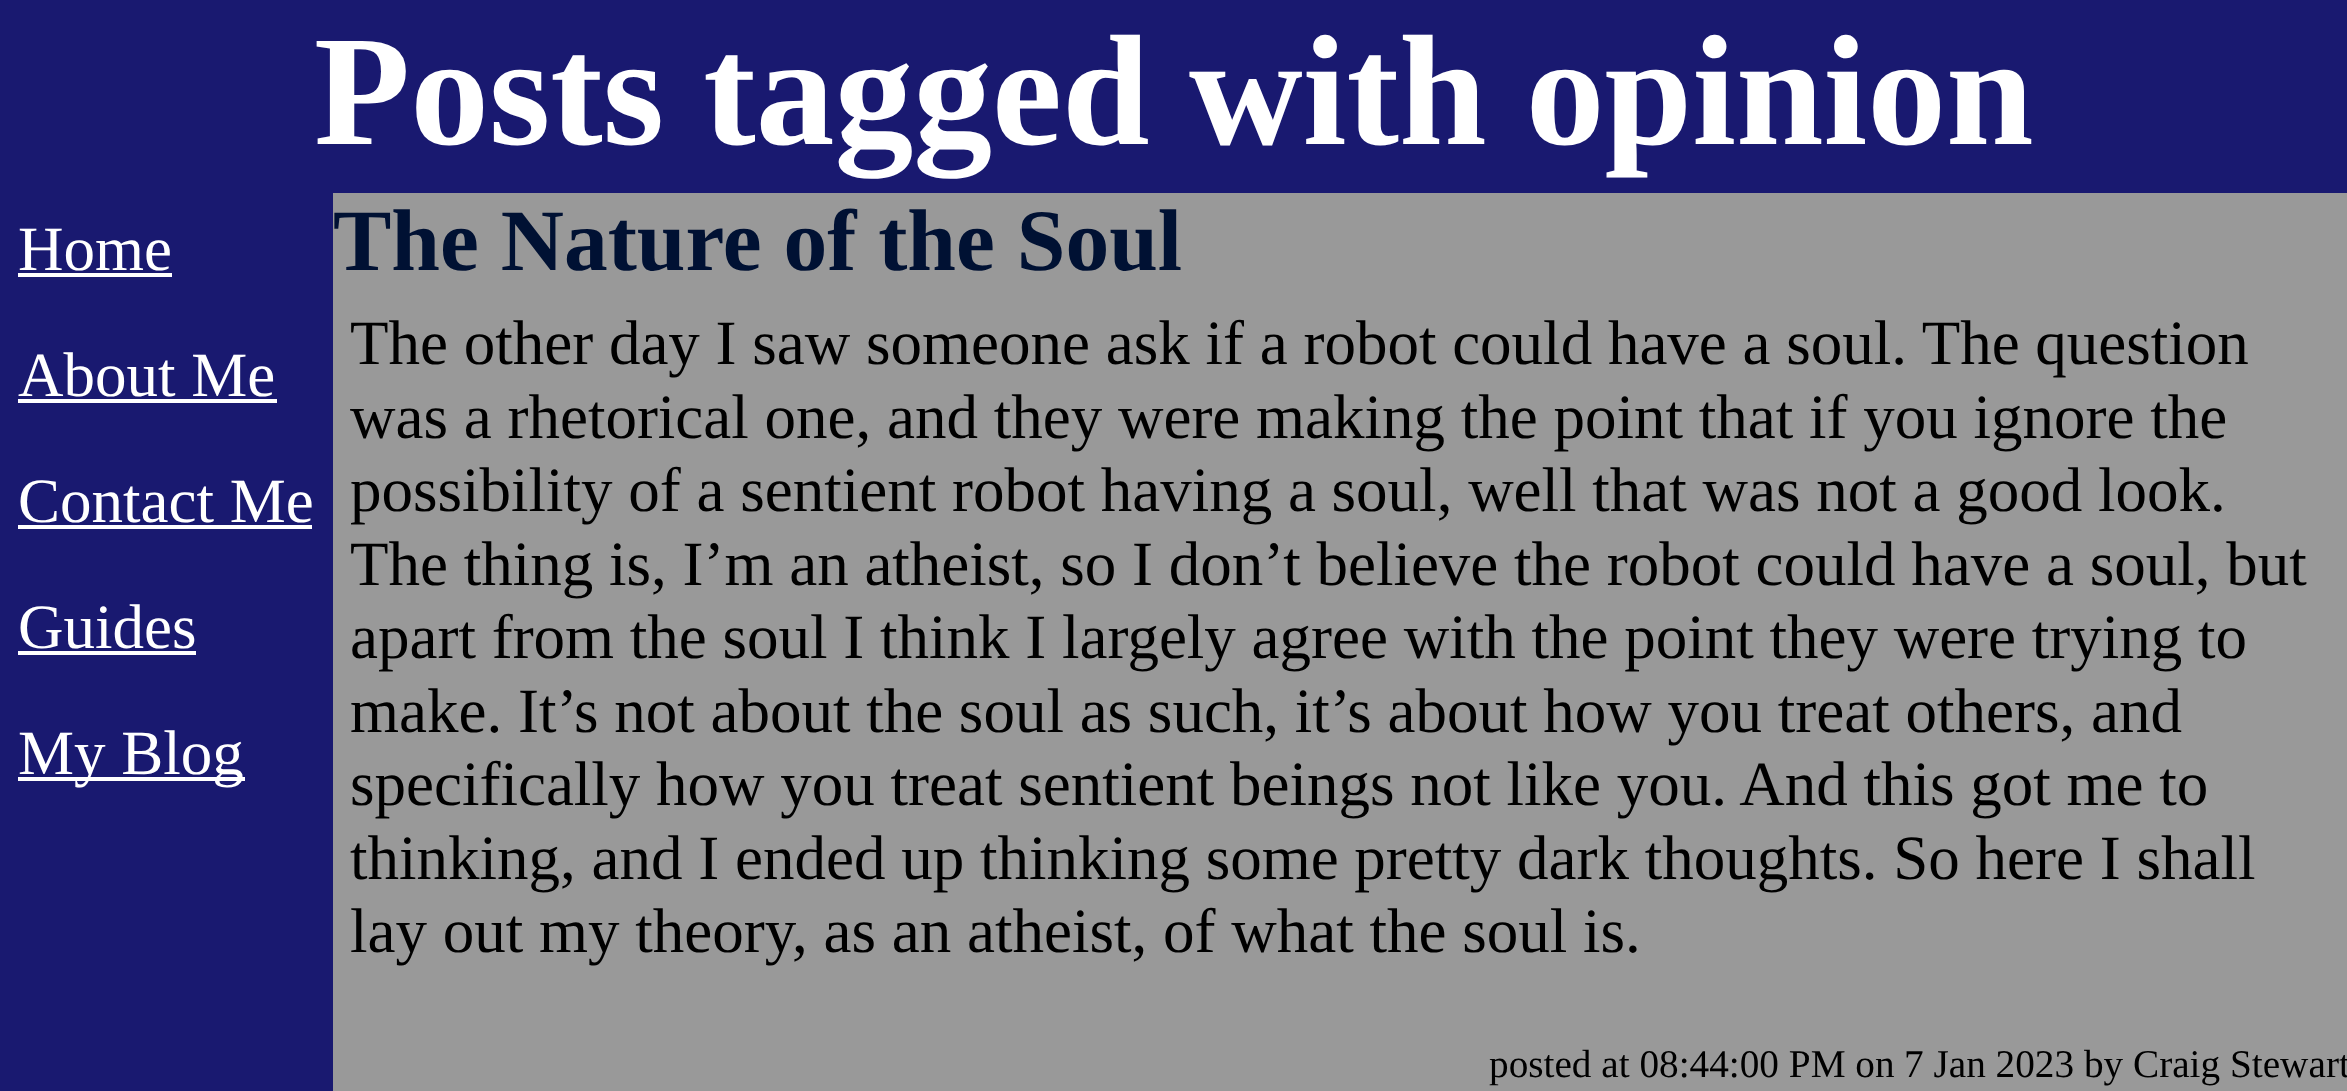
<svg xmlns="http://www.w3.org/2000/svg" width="2347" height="1091">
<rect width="100%" height="100%" fill="#999"/>
<rect width="2347" height="193" fill="#191970"/>
<text x="314" y="144" style="font-family:Liberation Serif;font-size:157.5px;font-weight:bold;fill:#fff">Posts tagged with opinion</text>
<rect y="193" width="333" height="898" fill="#191970"/>
<text x="18" y="270" style="font-family:Liberation Serif;font-size:63px;fill:#fff">Home</text>
<rect x="18" y="273" width="154" height="4" fill="#fff"/>
<text x="18" y="396" style="font-family:Liberation Serif;font-size:63px;fill:#fff">About Me</text>
<rect x="18" y="399" width="259" height="4" fill="#fff"/>
<text x="18" y="522" style="font-family:Liberation Serif;font-size:63px;fill:#fff">Contact Me</text>
<rect x="18" y="525" width="294" height="4" fill="#fff"/>
<text x="18" y="648" style="font-family:Liberation Serif;font-size:63px;fill:#fff">Guides</text>
<rect x="18" y="651" width="178" height="4" fill="#fff"/>
<rect x="18" y="777" width="227" height="4" fill="#fff"/>
<text x="18" y="774" style="font-family:Liberation Serif;font-size:63px;fill:#fff">My Blog</text>
<text x="333" y="270" style="font-family:Liberation Serif;font-size:87.5px;font-weight:bold;fill:#013">The Nature of the Soul</text>
<text x="350" y="364" style="font-family:Liberation Serif;font-size:63px;fill:#000">The other day I saw someone ask if a robot could have a soul. The question</text>
<text x="350" y="438" style="font-family:Liberation Serif;font-size:63px;fill:#000">was a rhetorical one, and they were making the point that if you ignore the</text>
<text x="350" y="511" style="font-family:Liberation Serif;font-size:63px;fill:#000">possibility of a sentient robot having a soul, well that was not a good look.</text>
<text x="350" y="585" style="font-family:Liberation Serif;font-size:63px;fill:#000">The thing is, I’m an atheist, so I don’t believe the robot could have a soul, but</text>
<text x="350" y="658" style="font-family:Liberation Serif;font-size:63px;fill:#000">apart from the soul I think I largely agree with the point they were trying to</text>
<text x="350" y="732" style="font-family:Liberation Serif;font-size:63px;fill:#000">make. It’s not about the soul as such, it’s about how you treat others, and</text>
<text x="350" y="805" style="font-family:Liberation Serif;font-size:63px;fill:#000">specifically how you treat sentient beings not like you. And this got me to</text>
<text x="350" y="879" style="font-family:Liberation Serif;font-size:63px;fill:#000">thinking, and I ended up thinking some pretty dark thoughts. So here I shall</text>
<text x="350" y="952" style="font-family:Liberation Serif;font-size:63px;fill:#000">lay out my theory, as an atheist, of what the soul is.</text>
<text x="1489" y="1077" style="font-family:Liberation Serif;font-size:39.25px;fill:#000">posted at 08:44:00 PM on</text>
<text x="1904" y="1077" style="font-family:Liberation Serif;font-size:39.25px;fill:#000">7 Jan 2023 by Craig Stewart</text>
</svg>
